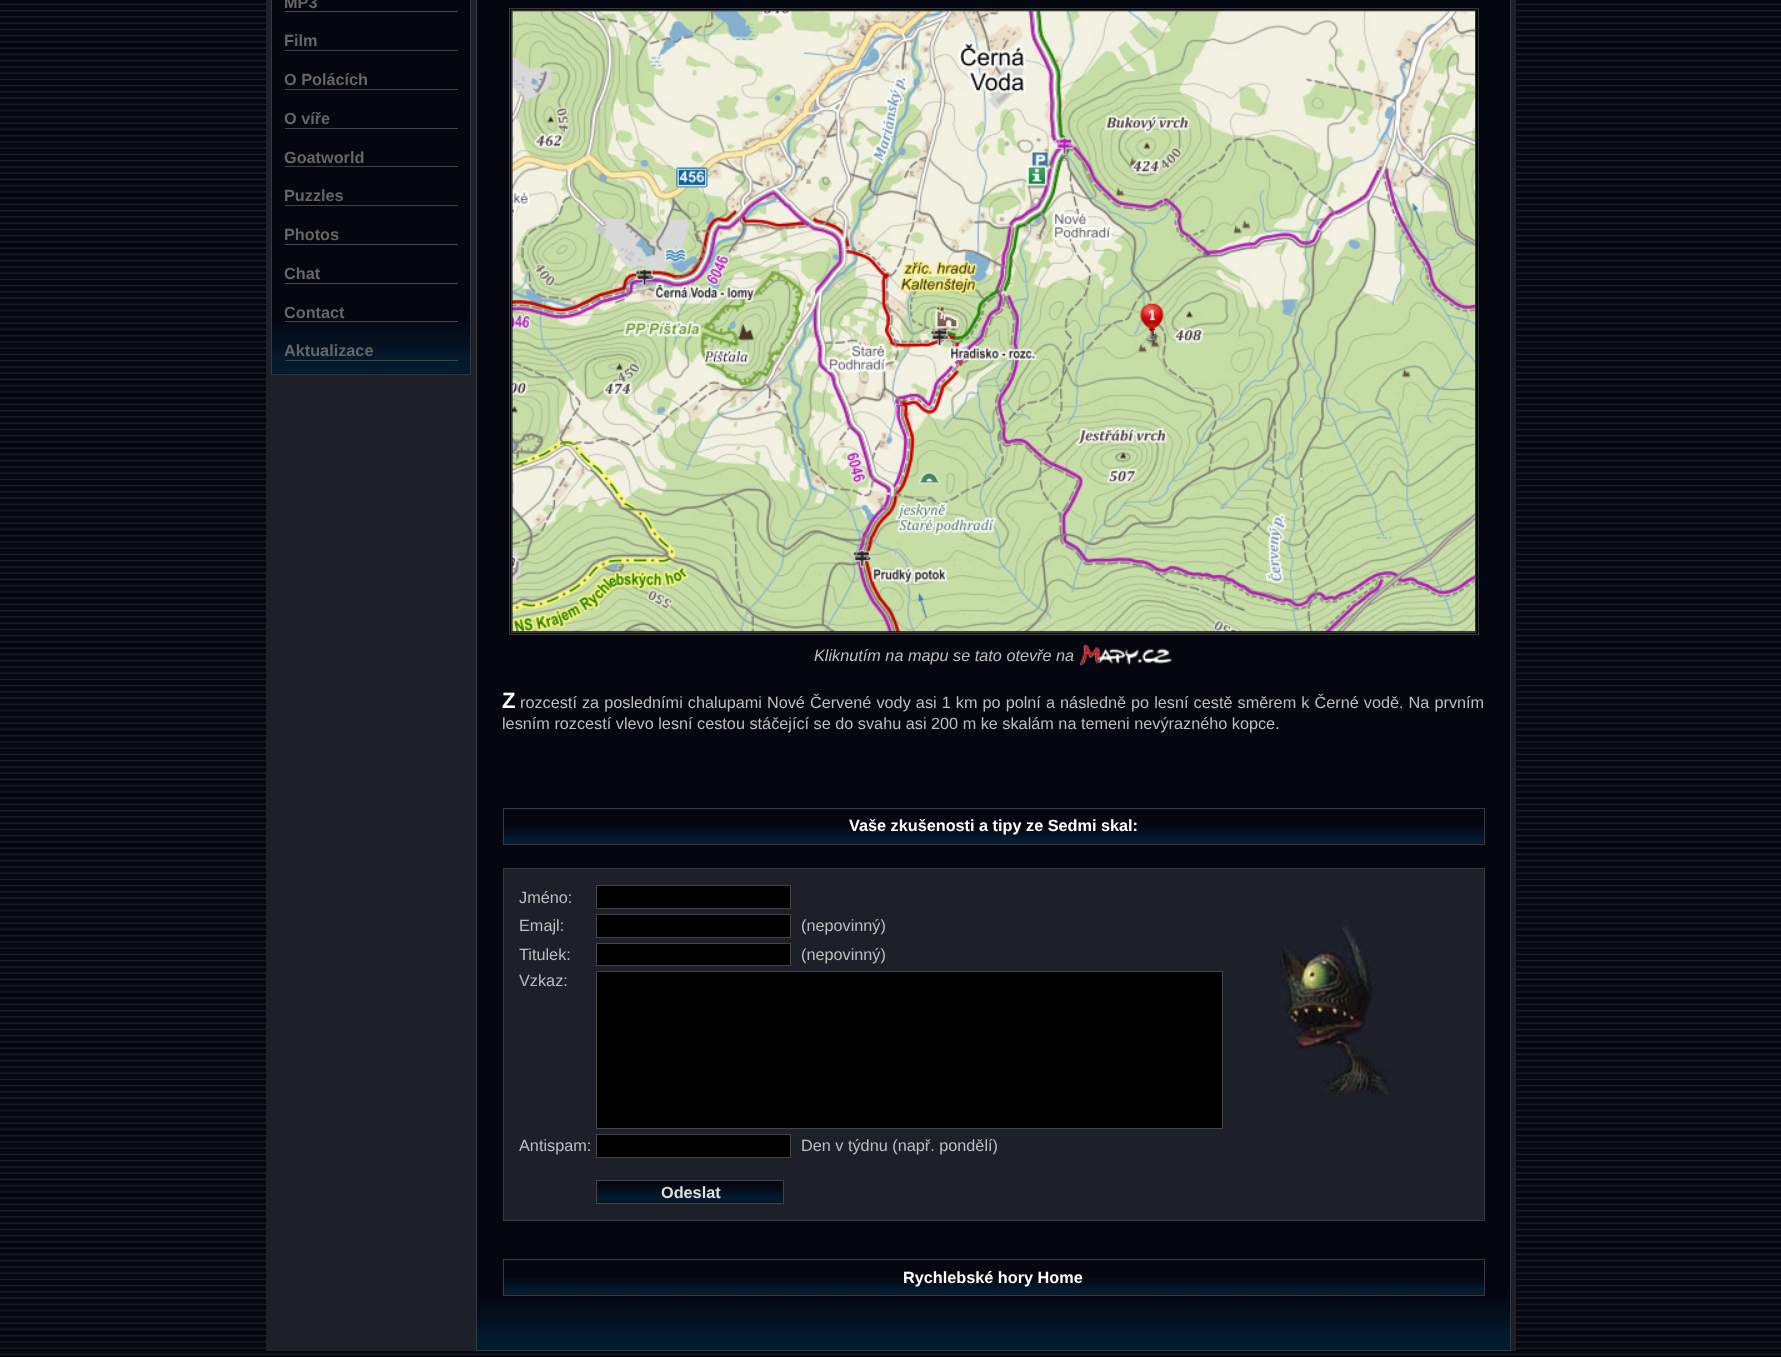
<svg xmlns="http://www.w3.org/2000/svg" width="1781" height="1357">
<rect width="100%" height="100%" fill="#fff"/>
<image x="0" y="0" width="1781" height="1357" href="media/1.png"/>
<rect x="266" width="1250" height="1351" fill="#1d2029"/>
<rect x="272" width="198" height="374" fill="#040710"/>
<image x="272" y="311" width="200" height="63" href="media/2.png"/>
<rect x="271.5" y="-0.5" width="199" height="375" fill="none" stroke="#393939"/>
<rect x="285" y="11" width="173" height="1" fill="#444"/>
<text x="284" y="8" style="font-family:Liberation Sans;font-size:16.25px;font-weight:bold;fill:#666">MP3</text>
<rect x="285" y="50" width="173" height="1" fill="#444"/>
<text x="284" y="46" style="font-family:Liberation Sans;font-size:16.25px;font-weight:bold;fill:#666">Film</text>
<rect x="285" y="89" width="173" height="1" fill="#444"/>
<text x="284" y="85" style="font-family:Liberation Sans;font-size:16.25px;font-weight:bold;fill:#666">O Polácích</text>
<rect x="285" y="128" width="173" height="1" fill="#444"/>
<text x="284" y="124" style="font-family:Liberation Sans;font-size:16.25px;font-weight:bold;fill:#666">O víře</text>
<rect x="285" y="166" width="173" height="1" fill="#444"/>
<text x="284" y="163" style="font-family:Liberation Sans;font-size:16.25px;font-weight:bold;fill:#666">Goatworld</text>
<rect x="285" y="205" width="173" height="1" fill="#444"/>
<text x="284" y="201" style="font-family:Liberation Sans;font-size:16.25px;font-weight:bold;fill:#666">Puzzles</text>
<rect x="285" y="244" width="173" height="1" fill="#444"/>
<text x="284" y="240" style="font-family:Liberation Sans;font-size:16.25px;font-weight:bold;fill:#666">Photos</text>
<rect x="285" y="283" width="173" height="1" fill="#444"/>
<text x="284" y="279" style="font-family:Liberation Sans;font-size:16.25px;font-weight:bold;fill:#666">Chat</text>
<rect x="285" y="321" width="173" height="1" fill="#444"/>
<text x="284" y="318" style="font-family:Liberation Sans;font-size:16.25px;font-weight:bold;fill:#666">Contact</text>
<rect x="285" y="360" width="173" height="1" fill="#444"/>
<text x="284" y="356" style="font-family:Liberation Sans;font-size:16.25px;font-weight:bold;fill:#666">Aktualizace</text>
<rect x="477" width="1033" height="1288" fill="#040710"/>
<image x="477" y="1288" width="1035" height="62" href="media/3.png"/>
<rect x="476.5" y="-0.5" width="1034" height="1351" fill="none" stroke="#393939"/>
<rect x="509.5" y="8.5" width="969" height="626" fill="none" stroke="#393939"/>
<rect x="511.5" y="10.5" width="964" height="622" fill="none" stroke="#393939"/>
<image x="512" y="11" width="963" height="621" href="media/4.png"/>
<text x="814" y="661" style="font-family:Liberation Sans;font-size:16.25px;font-style:italic;fill:#bfbfbf">Kliknutím na mapu se tato otevře na</text>
<image x="1080" y="645" width="93" height="20" href="media/5.png"/>
<text x="502" y="708" style="font-family:Liberation Sans;font-size:22px;font-weight:bold;fill:#fff">Z</text>
<text x="520" y="708" word-spacing="0.55" style="font-family:Liberation Sans;font-size:16.25px;fill:#bfbfbf">rozcestí za posledními chalupami Nové Červené vody asi 1 km po polní a následně po lesní cestě směrem k Černé vodě. Na prvním</text>
<text x="502" y="729" style="font-family:Liberation Sans;font-size:16.25px;fill:#bfbfbf">lesním rozcestí vlevo lesní cestou stáčející se do svahu asi 200 m ke skalám na temeni nevýrazného kopce.</text>
<image x="502" y="827" width="982" height="17" href="media/6.png"/>
<rect x="503.5" y="808.5" width="981" height="36" fill="none" stroke="#393939"/>
<text x="849" y="831" style="font-family:Liberation Sans;font-size:16.25px;font-weight:bold;fill:#fff">Vaše zkušenosti a tipy ze Sedmi skal:</text>
<rect x="503.5" y="868.5" width="981" height="352" fill="#1d2029" stroke="#393939"/>
<text x="519" y="903" style="font-family:Liberation Sans;font-size:16.25px;fill:#bfbfbf">Jméno:</text>
<rect x="596.5" y="885.5" width="194" height="23" fill="#000" stroke="#444"/>
<image x="1277" y="920" width="115" height="175" href="media/7.png"/>
<text x="519" y="931" style="font-family:Liberation Sans;font-size:16.25px;fill:#bfbfbf">Emajl:</text>
<rect x="596.5" y="914.5" width="194" height="23" fill="#000" stroke="#444"/>
<text x="801" y="931" style="font-family:Liberation Sans;font-size:16.25px;fill:#bfbfbf">(nepovinný)</text>
<text x="519" y="960" style="font-family:Liberation Sans;font-size:16.25px;fill:#bfbfbf">Titulek:</text>
<rect x="596.5" y="943.5" width="194" height="22" fill="#000" stroke="#444"/>
<text x="801" y="960" style="font-family:Liberation Sans;font-size:16.25px;fill:#bfbfbf">(nepovinný)</text>
<text x="519" y="986" style="font-family:Liberation Sans;font-size:16.25px;fill:#bfbfbf">Vzkaz:</text>
<rect x="596.5" y="971.5" width="626" height="157" fill="#000" stroke="#444"/>
<text x="519" y="1151" style="font-family:Liberation Sans;font-size:16.25px;fill:#bfbfbf">Antispam:</text>
<rect x="596.5" y="1134.5" width="194" height="23" fill="#000" stroke="#444"/>
<text x="801" y="1151" style="font-family:Liberation Sans;font-size:16.25px;fill:#bfbfbf">Den v týdnu (např. pondělí)</text>
<rect x="597" y="1181" width="186" height="22" fill="#040710"/>
<image x="597" y="1186" width="186" height="17" href="media/8.png"/>
<rect x="596.5" y="1180.5" width="187" height="23" fill="none" stroke="#444"/>
<text x="661" y="1198" style="font-family:Liberation Sans;font-size:16.25px;font-weight:bold;fill:#dfdfdf">Odeslat</text>
<image x="502" y="1279" width="982" height="16" href="media/9.png"/>
<rect x="503.5" y="1259.5" width="981" height="36" fill="none" stroke="#393939"/>
<text x="903" y="1283" style="font-family:Liberation Sans;font-size:16.25px;font-weight:bold;fill:#fff">Rychlebské hory Home</text>
</svg>
